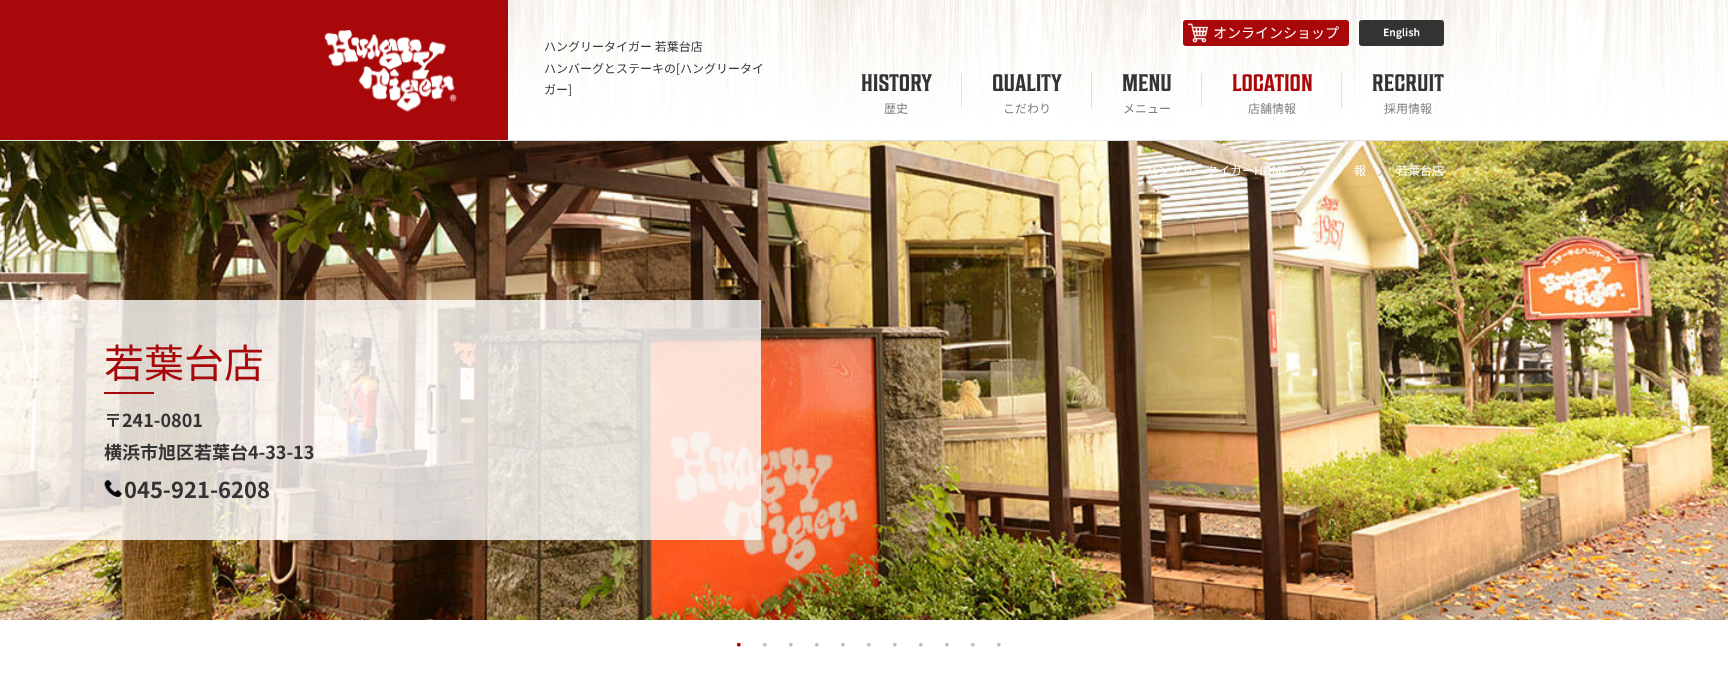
<svg xmlns="http://www.w3.org/2000/svg" width="1728" height="675">
<rect width="100%" height="100%" fill="#fff"/>
<rect y="140" width="1728" height="1" fill="#dfdfdf"/>
<rect width="508" height="140" fill="#a9080a"/>
<image x="324" y="30" width="133" height="82" href="media/1.png"/>
<image x="508" y="0" width="936" height="134" href="media/2.png"/>
<rect x="1183" y="20" width="166" height="26" rx="3" fill="#a9080a"/>
<image x="1188" y="23" width="20" height="20" href="media/3.png"/>
<text x="1213" y="38" style="font-family:Noto Sans JP;font-size:14px;fill:#fff">オンラインショップ</text>
<rect x="1359" y="20" width="85" height="26" rx="3" fill="#333"/>
<image x="1384" y="28" width="36" height="11" href="media/4.png"/>
<text x="544" y="51" style="font-family:Noto Sans JP;font-size:12px;fill:#333">ハングリータイガー 若葉台店</text>
<text x="544" y="73" style="font-family:Noto Sans JP;font-size:12px;fill:#333">ハンバーグとステーキの[ハングリータイ</text>
<text x="544" y="94" style="font-family:Noto Sans JP;font-size:12px;fill:#333">ガー]</text>
<text x="861" y="91" style="font-family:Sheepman;font-size:24px;fill:#333">HISTORY</text>
<text x="884" y="113" style="font-family:Noto Sans JP;font-size:12px;fill:#7e7e7e">歴史</text>
<rect x="961" y="73" width="1" height="35" fill="#e0e0df"/>
<text x="992" y="91" style="font-family:Sheepman;font-size:24px;fill:#333">QUALITY</text>
<text x="1003" y="113" style="font-family:Noto Sans JP;font-size:12px;fill:#7e7e7e">こだわり</text>
<rect x="1091" y="73" width="1" height="35" fill="#64646433"/>
<text x="1122" y="91" style="font-family:Sheepman;font-size:24px;fill:#333">MENU</text>
<text x="1123" y="113" style="font-family:Noto Sans JP;font-size:12px;fill:#7e7e7e">メニュー</text>
<rect x="1201" y="73" width="1" height="35" fill="#64646433"/>
<text x="1232" y="91" style="font-family:Sheepman;font-size:24px;fill:#a9080a">LOCATION</text>
<text x="1248" y="113" style="font-family:Noto Sans JP;font-size:12px;fill:#7e7e7e">店舗情報</text>
<rect x="1341" y="73" width="1" height="35" fill="#64646433"/>
<text x="1372" y="91" style="font-family:Sheepman;font-size:24px;fill:#333">RECRUIT</text>
<text x="1384" y="113" style="font-family:Noto Sans JP;font-size:12px;fill:#7e7e7e">採用情報</text>
<image x="1444" y="0" width="284" height="131" href="media/5.png"/>
<image x="0" y="141" width="1728" height="479" href="media/9.png"/>
<text x="1146" y="175" style="font-family:Noto Sans JP;font-size:12px;fill:#fff">ハングリータイガーHOME</text>
<image x="1300" y="166" width="6" height="10" href="media/6.png"/>
<text x="1354" y="175" style="font-family:Noto Sans JP;font-size:12px;fill:#fff">報</text>
<image x="1378" y="166" width="6" height="10" href="media/7.png"/>
<text x="1396" y="175" style="font-family:Noto Sans JP;font-size:12px;fill:#fff">若葉台店</text>
<rect x="104" y="300" width="657" height="240" fill="#ffffffcc"/>
<rect y="300" width="104" height="240" fill="#ffffffcc"/>
<text x="104" y="378" style="font-family:Noto Sans JP;font-size:40px;fill:#a9080a">若葉台店</text>
<rect x="104" y="392" width="50" height="2" fill="#a9080a"/>
<text x="104" y="427" style="font-family:Noto Sans JP;font-size:18px;font-weight:bold;fill:#333">〒241-0801</text>
<text x="104" y="459" style="font-family:Noto Sans JP;font-size:18px;font-weight:bold;fill:#333">横浜市旭区若葉台4-33-13</text>
<image x="104" y="480" width="18" height="17" href="media/8.png"/>
<text x="124" y="498" style="font-family:Noto Sans JP;font-size:22px;font-weight:bold;fill:#333">045-921-6208</text>
<text x="736" y="650" style="font-family:Liberation Serif;font-size:16px;fill:#a9080a">•</text>
<text x="762" y="650" style="font-family:Liberation Serif;font-size:16px;fill:#bfbfbf">•</text>
<text x="788" y="650" style="font-family:Liberation Serif;font-size:16px;fill:#bfbfbf">•</text>
<text x="814" y="650" style="font-family:Liberation Serif;font-size:16px;fill:#bfbfbf">•</text>
<text x="840" y="650" style="font-family:Liberation Serif;font-size:16px;fill:#bfbfbf">•</text>
<text x="866" y="650" style="font-family:Liberation Serif;font-size:16px;fill:#bfbfbf">•</text>
<text x="892" y="650" style="font-family:Liberation Serif;font-size:16px;fill:#bfbfbf">•</text>
<text x="918" y="650" style="font-family:Liberation Serif;font-size:16px;fill:#bfbfbf">•</text>
<text x="944" y="650" style="font-family:Liberation Serif;font-size:16px;fill:#bfbfbf">•</text>
<text x="970" y="650" style="font-family:Liberation Serif;font-size:16px;fill:#bfbfbf">•</text>
<text x="996" y="650" style="font-family:Liberation Serif;font-size:16px;fill:#bfbfbf">•</text>
</svg>
